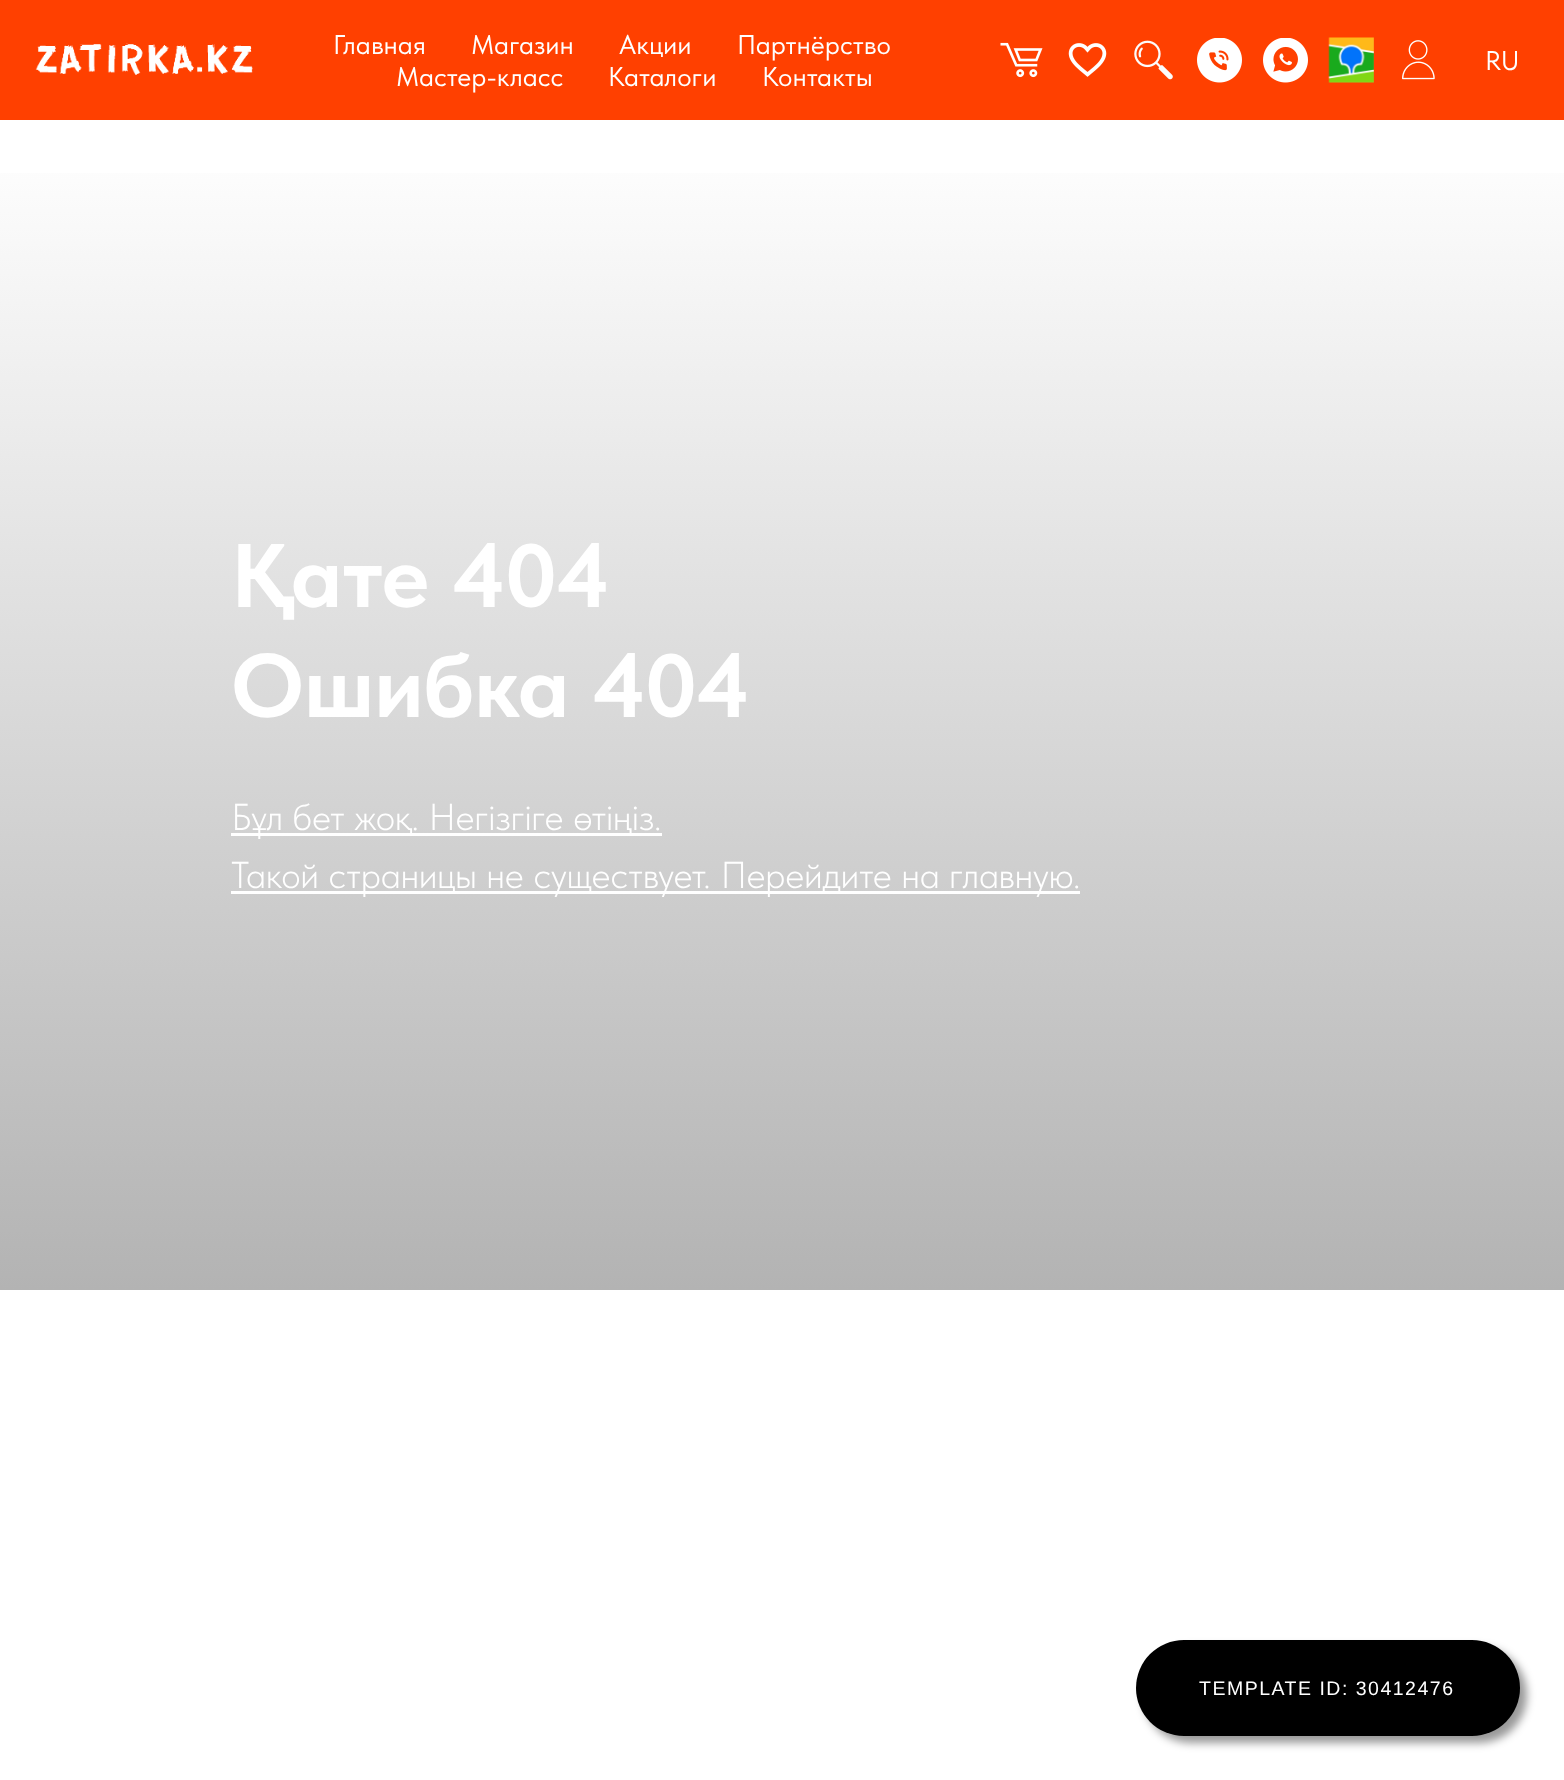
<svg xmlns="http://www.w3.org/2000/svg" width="1564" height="1780">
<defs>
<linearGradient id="g1" gradientUnits="userSpaceOnUse" x1="782" y1="135" x2="782" y2="1290"><stop offset="0" stop-color="#fff"/><stop offset="1" stop-color="#b3b3b3"/></linearGradient>
</defs>
<rect width="100%" height="100%" fill="#fff"/>
<rect width="1564" height="120" fill="#ff4000"/>
<image x="35" y="43" width="218" height="32" href="media/1.png"/>
<text x="333" y="54" style="font-family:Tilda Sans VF;font-size:27px;fill:#fff">Главная</text>
<text x="471" y="54" style="font-family:Tilda Sans VF;font-size:27px;fill:#fff">Магазин</text>
<text x="619" y="54" style="font-family:Tilda Sans VF;font-size:27px;fill:#fff">Акции</text>
<text x="737" y="54" style="font-family:Tilda Sans VF;font-size:27px;fill:#fff">Партнёрство</text>
<text x="396" y="86" style="font-family:Tilda Sans VF;font-size:27px;fill:#fff">Мастер-класс</text>
<text x="608" y="86" style="font-family:Tilda Sans VF;font-size:27px;fill:#fff">Каталоги</text>
<text x="762" y="86" style="font-family:Tilda Sans VF;font-size:27px;fill:#fff">Контакты</text>
<image x="1000" y="42" width="43" height="36" href="media/2.png"/>
<image x="1068" y="43" width="39" height="34" href="media/3.png"/>
<image x="1134" y="40" width="39" height="40" href="media/4.png"/>
<image x="1197" y="38" width="45" height="45" href="media/5.png"/>
<image x="1263" y="38" width="45" height="45" href="media/6.png"/>
<image x="1328" y="37" width="46" height="46" href="media/7.png"/>
<image x="1402" y="40" width="33" height="40" href="media/8.png"/>
<text x="1485" y="70" style="font-family:Tilda Sans VF;font-size:27px;fill:#fff">RU</text>
<rect y="173" width="1564" height="1117" fill="url(#g1)"/>
<text x="231" y="607" style="font-family:Tilda Sans VF;font-size:90px;font-weight:bold;fill:#fff">Қате 404</text>
<text x="231" y="717" style="font-family:Tilda Sans VF;font-size:90px;font-weight:bold;fill:#fff">Ошибка 404</text>
<rect x="231" y="833" width="431" height="3" fill="#fff"/>
<text x="231" y="830" style="font-family:Tilda Sans VF;font-size:37.5px;font-weight:300;fill:#fff">Бұл бет жоқ. Негізгіге өтіңіз.</text>
<rect x="231" y="891" width="849" height="3" fill="#fff"/>
<text x="231" y="888" style="font-family:Tilda Sans VF;font-size:37.5px;font-weight:300;fill:#fff">Такой страницы не существует. Перейдите на главную.</text>
<rect x="1143" y="1647" width="384" height="96" rx="48" fill="#00000066" filter="blur(4px)"/>
<rect x="1136" y="1640" width="384" height="96" rx="48" fill="#000"/>
<text x="1199" y="1695" style="font-family:Liberation Sans;font-size:19.5px;letter-spacing:1.5px;fill:#fff">TEMPLATE ID: 30412476</text>
</svg>
